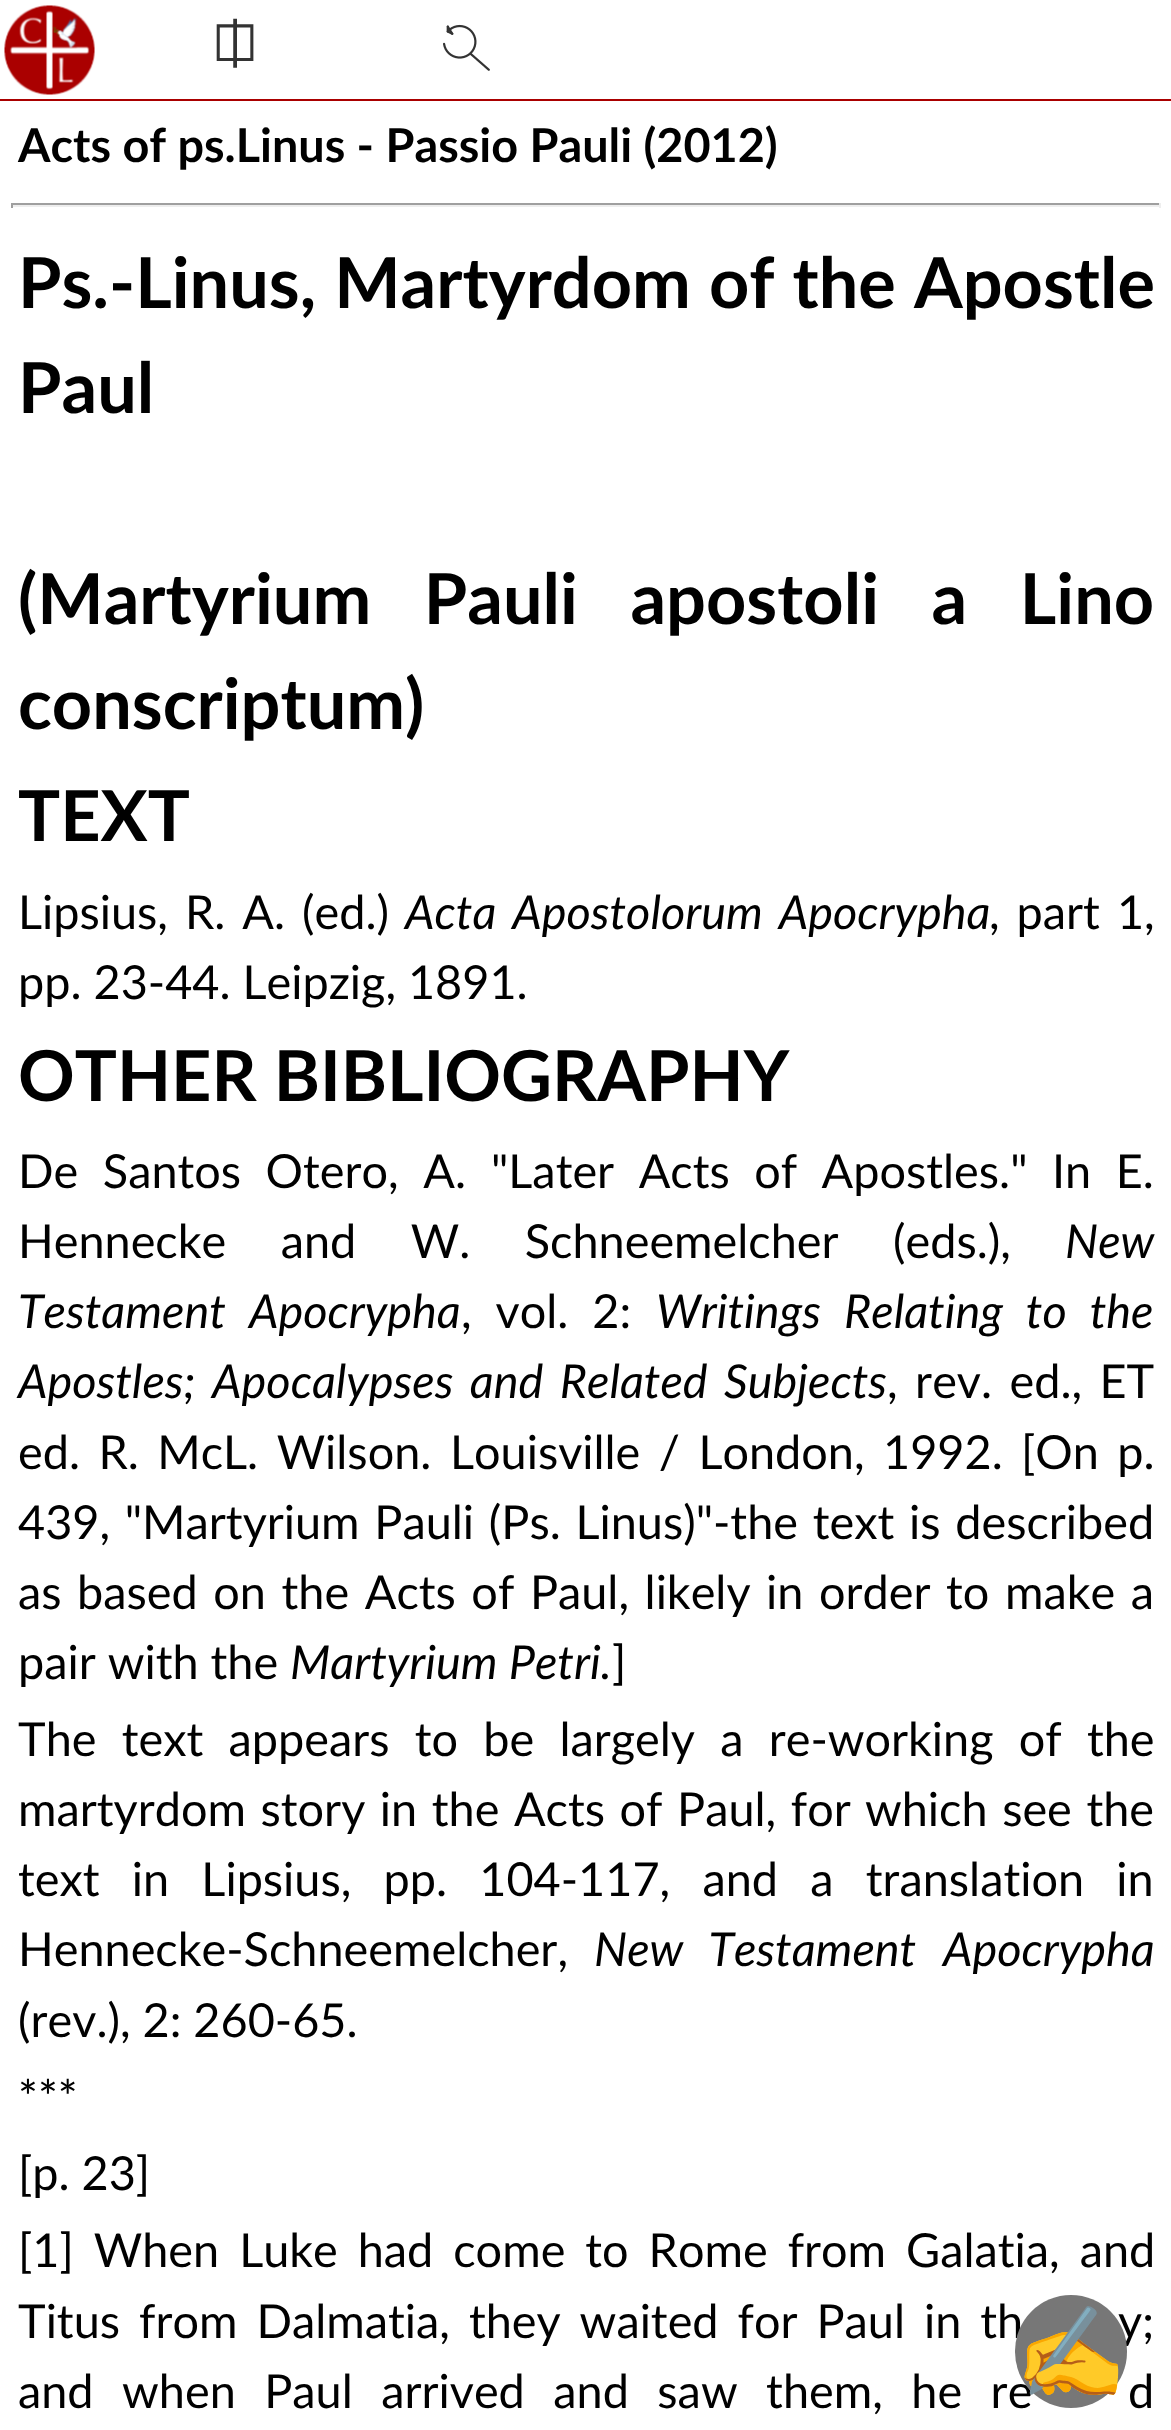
<svg xmlns="http://www.w3.org/2000/svg" width="1171" height="2430">
<style>*{font-kerning:none!important;font-variant-ligatures:none!important}</style>
<rect width="100%" height="100%" fill="#fff"/>
<image x="4" y="5" width="91" height="90" href="media/1.png"/>
<rect y="99" width="1171" height="2" fill="#a00"/>
<text x="214" y="61" style="font-family:FreeSerif;font-size:51px;font-weight:bold;fill:#333">⎅</text>
<image x="443" y="24" width="47" height="47" href="media/2.png"/>
<text x="18" y="162" style="font-family:Lato;font-size:46.8px;font-weight:bold;fill:#000">Acts of ps.Linus - Passio Pauli (2012)</text>
<rect x="11" y="203" width="1150" height="2" fill="#9f9f9f"/>
<rect x="1159" y="203" width="2" height="5" fill="#eee"/>
<rect x="11" y="205" width="1150" height="2" fill="#eee"/>
<rect x="11" y="203" width="2" height="5" fill="#9f9f9f"/>
<text x="18" y="308" word-spacing="1" style="font-family:Lato;font-size:70.25px;font-weight:bold;fill:#000">Ps.-Linus, Martyrdom of the Apostle</text>
<text x="18" y="413" style="font-family:Lato;font-size:70.25px;font-weight:bold;fill:#000">Paul</text>
<text x="18" y="624" word-spacing="35.5" style="font-family:Lato;font-size:70.25px;font-weight:bold;fill:#000">(Martyrium Pauli apostoli a Lino</text>
<text x="18" y="729" style="font-family:Lato;font-size:70.25px;font-weight:bold;fill:#000">conscriptum)</text>
<text x="18" y="841" style="font-family:Lato;font-size:70.25px;font-weight:bold;fill:#000">TEXT</text>
<text x="18" y="929" word-spacing="5" style="font-family:Lato;font-size:46.8px;fill:#000">Lipsius, R. A. (ed.)</text>
<text x="405" y="929" word-spacing="5" style="font-family:Lato;font-size:46.8px;font-style:italic;fill:#000">Acta Apostolorum Apocrypha</text>
<text x="989" y="929" word-spacing="5" style="font-family:Lato;font-size:46.8px;fill:#000">, part 1,</text>
<text x="18" y="999" style="font-family:Lato;font-size:46.8px;fill:#000">pp. 23-44. Leipzig, 1891.</text>
<text x="18" y="1101" style="font-family:Lato;font-size:70.25px;font-weight:bold;fill:#000">OTHER BIBLIOGRAPHY</text>
<text x="18" y="1188" word-spacing="12.5" style="font-family:Lato;font-size:46.8px;fill:#000">De Santos Otero, A.</text>
<text x="491" y="1188" word-spacing="12.5" style="font-family:Lato;font-size:46.8px;fill:#000">"Later Acts of Apostles."</text>
<text x="1052" y="1188" word-spacing="12.5" style="font-family:Lato;font-size:46.8px;fill:#000">In E.</text>
<text x="18" y="1258" word-spacing="42.5" style="font-family:Lato;font-size:46.8px;fill:#000">Hennecke and W. Schneemelcher (eds.),</text>
<text x="1065" y="1258" style="font-family:Lato;font-size:46.8px;font-style:italic;fill:#000">New</text>
<text x="18" y="1328" word-spacing="12" style="font-family:Lato;font-size:46.8px;font-style:italic;fill:#000">Testament</text>
<text x="249" y="1328" word-spacing="12" style="font-family:Lato;font-size:46.8px;font-style:italic;fill:#000">Apocrypha</text>
<text x="461" y="1328" word-spacing="12" style="font-family:Lato;font-size:46.8px;fill:#000">, vol. 2:</text>
<text x="656" y="1328" word-spacing="12" style="font-family:Lato;font-size:46.8px;font-style:italic;fill:#000">Writings Relating to the</text>
<text x="18" y="1398" word-spacing="5.5" style="font-family:Lato;font-size:46.8px;font-style:italic;fill:#000">Apostles; Apocalypses and Related Subjects</text>
<text x="887" y="1398" word-spacing="5.5" style="font-family:Lato;font-size:46.8px;fill:#000">, rev. ed., ET</text>
<text x="18" y="1469" word-spacing="6.5" style="font-family:Lato;font-size:46.8px;fill:#000">ed. R. McL. Wilson.</text>
<text x="450" y="1469" word-spacing="6.5" style="font-family:Lato;font-size:46.8px;fill:#000">Louisville / London, 1992.</text>
<text x="1021" y="1469" word-spacing="6.5" style="font-family:Lato;font-size:46.8px;fill:#000">[On p.</text>
<text x="18" y="1539" word-spacing="2.75" style="font-family:Lato;font-size:46.8px;fill:#000">439, "Martyrium Pauli (Ps. Linus)"-the text is described</text>
<text x="18" y="1609" word-spacing="3.6" style="font-family:Lato;font-size:46.8px;fill:#000">as based on the Acts of Paul, likely in order</text>
<text x="946" y="1609" word-spacing="3.6" style="font-family:Lato;font-size:46.8px;fill:#000">to make a</text>
<text x="18" y="1679" style="font-family:Lato;font-size:46.8px;fill:#000">pair with the</text>
<text x="290" y="1679" style="font-family:Lato;font-size:46.8px;font-style:italic;fill:#000">Martyrium Petri.</text>
<text x="612" y="1679" style="font-family:Lato;font-size:46.8px;fill:#000">]</text>
<text x="18" y="1756" word-spacing="13.25" style="font-family:Lato;font-size:46.8px;fill:#000">The text appears to be largely a re-working of the</text>
<text x="18" y="1826" word-spacing="2.6" style="font-family:Lato;font-size:46.8px;fill:#000">martyrdom story in the Acts of Paul, for</text>
<text x="865" y="1826" word-spacing="2.6" style="font-family:Lato;font-size:46.8px;fill:#000">which see the</text>
<text x="18" y="1896" word-spacing="20.25" style="font-family:Lato;font-size:46.8px;fill:#000">text in Lipsius, pp. 104-117, and a translation in</text>
<text x="18" y="1966" style="font-family:Lato;font-size:46.8px;fill:#000">Hennecke-Schneemelcher,</text>
<text x="594" y="1966" word-spacing="14" style="font-family:Lato;font-size:46.8px;font-style:italic;fill:#000">New Testament</text>
<text x="943" y="1966" word-spacing="14" style="font-family:Lato;font-size:46.8px;font-style:italic;fill:#000">Apocrypha</text>
<text x="18" y="2037" style="font-family:Lato;font-size:46.8px;fill:#000">(rev.), 2: 260-65.</text>
<text x="18" y="2114" style="font-family:Lato;font-size:46.8px;fill:#000">***</text>
<text x="18" y="2190" style="font-family:Lato;font-size:46.8px;fill:#000">[p. 23]</text>
<text x="18" y="2267" word-spacing="8" style="font-family:Lato;font-size:46.8px;fill:#000">[1] When Luke had come to Rome from Galatia, and</text>
<text x="18" y="2338" word-spacing="7" style="font-family:Lato;font-size:46.8px;fill:#000">Titus from Dalmatia, they waited for Paul in th</text>
<text x="1118" y="2338" word-spacing="7" style="font-family:Lato;font-size:46.8px;fill:#000">y;</text>
<text x="18" y="2408" word-spacing="16.5" style="font-family:Lato;font-size:46.8px;fill:#000">and when Paul arrived and saw them, he re</text>
<text x="1128" y="2408" word-spacing="16.5" style="font-family:Lato;font-size:46.8px;fill:#000">d</text>
<rect x="1015" y="2295" width="112" height="113" rx="56" fill="#777"/>
<text x="1015" y="2384" style="font-family:Noto Color Emoji;font-size:90px;fill:#fff">✍</text>
</svg>
